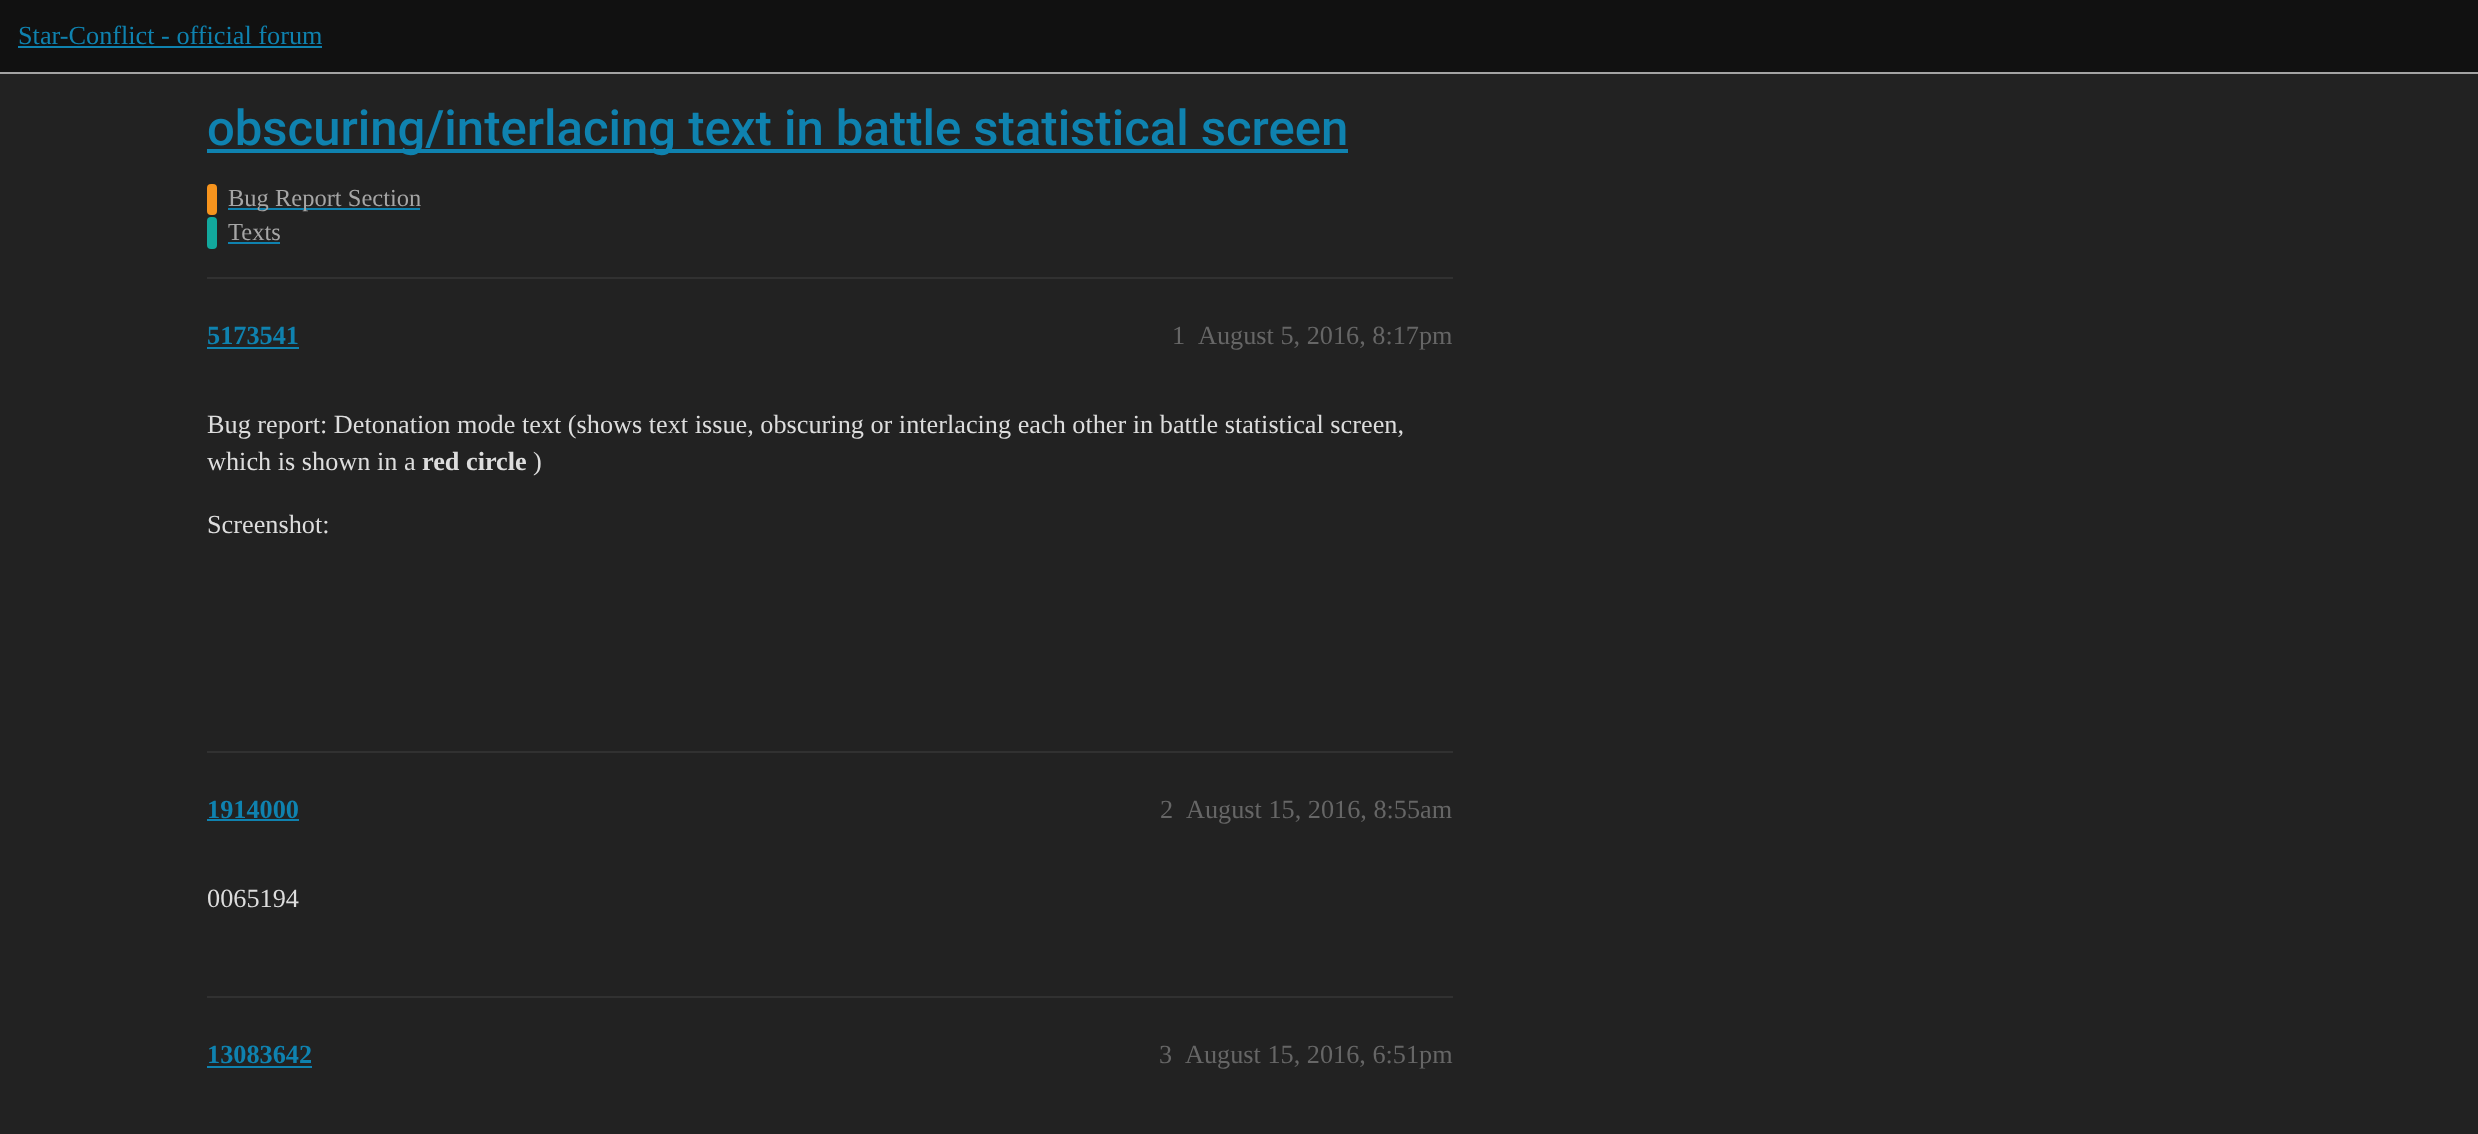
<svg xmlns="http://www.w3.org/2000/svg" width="2478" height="1134">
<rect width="100%" height="100%" fill="#222"/>
<rect width="2478" height="72" fill="#111"/>
<rect y="72" width="2478" height="2" fill="#a4a4a4"/>
<text x="18" y="44" style="font-family:Liberation Serif;font-size:26.25px;fill:#0f82af">Star-Conflict - official forum</text>
<rect x="18" y="46" width="304" height="2" fill="#0f82af"/>
<rect x="207" y="149" width="1141" height="4" fill="#0f82af"/>
<text x="207" y="145" style="font-family:Roboto;font-size:49px;font-weight:500;fill:#0f82af">obscuring/interlacing text in battle statistical screen</text>
<rect x="207" y="184" width="10" height="31" rx="4" fill="#f7941d"/>
<rect x="228" y="208" width="192" height="2" fill="#0f82af"/>
<text x="228" y="206" style="font-family:Liberation Serif;font-size:24.5px;fill:#a6a6a6">Bug Report Section</text>
<rect x="207" y="217" width="10" height="32" rx="4" fill="#12a89d"/>
<text x="228" y="240" style="font-family:Liberation Serif;font-size:24.5px;fill:#a6a6a6">Texts</text>
<rect x="228" y="242" width="52" height="2" fill="#0f82af"/>
<rect x="207" y="277" width="1246" height="2" fill="#313131"/>
<text x="207" y="344" style="font-family:Liberation Serif;font-size:26.25px;font-weight:bold;fill:#0f82af">5173541</text>
<rect x="207" y="347" width="92" height="2" fill="#0f82af"/>
<text x="1172" y="344" style="font-family:Liberation Serif;font-size:26.25px;fill:#666">1</text>
<text x="1198" y="344" style="font-family:Liberation Serif;font-size:26.25px;fill:#666">August 5, 2016, 8:17pm</text>
<text x="207" y="433" style="font-family:Liberation Serif;font-size:26.25px;fill:#ddd">Bug report: Detonation mode text (shows text issue, obscuring or interlacing each other in battle statistical screen,</text>
<text x="207" y="470" style="font-family:Liberation Serif;font-size:26.25px;fill:#ddd">which is shown in a</text>
<text x="422" y="470" style="font-family:Liberation Serif;font-size:26.25px;font-weight:bold;fill:#ddd">red circle</text>
<text x="533" y="470" style="font-family:Liberation Serif;font-size:26.25px;fill:#ddd">)</text>
<text x="207" y="533" style="font-family:Liberation Serif;font-size:26.25px;fill:#ddd">Screenshot:</text>
<rect x="207" y="751" width="1246" height="2" fill="#313131"/>
<text x="207" y="818" style="font-family:Liberation Serif;font-size:26.25px;font-weight:bold;fill:#0f82af">1914000</text>
<rect x="207" y="819" width="92" height="2" fill="#0f82af"/>
<text x="1160" y="818" style="font-family:Liberation Serif;font-size:26.25px;fill:#666">2</text>
<text x="1186" y="818" style="font-family:Liberation Serif;font-size:26.25px;fill:#666">August 15, 2016, 8:55am</text>
<text x="207" y="907" style="font-family:Liberation Serif;font-size:26.25px;fill:#ddd">0065194</text>
<rect x="207" y="996" width="1246" height="2" fill="#313131"/>
<text x="207" y="1063" style="font-family:Liberation Serif;font-size:26.25px;font-weight:bold;fill:#0f82af">13083642</text>
<rect x="207" y="1066" width="105" height="2" fill="#0f82af"/>
<text x="1159" y="1063" style="font-family:Liberation Serif;font-size:26.25px;fill:#666">3</text>
<text x="1185" y="1063" style="font-family:Liberation Serif;font-size:26.25px;fill:#666">August 15, 2016, 6:51pm</text>
</svg>
